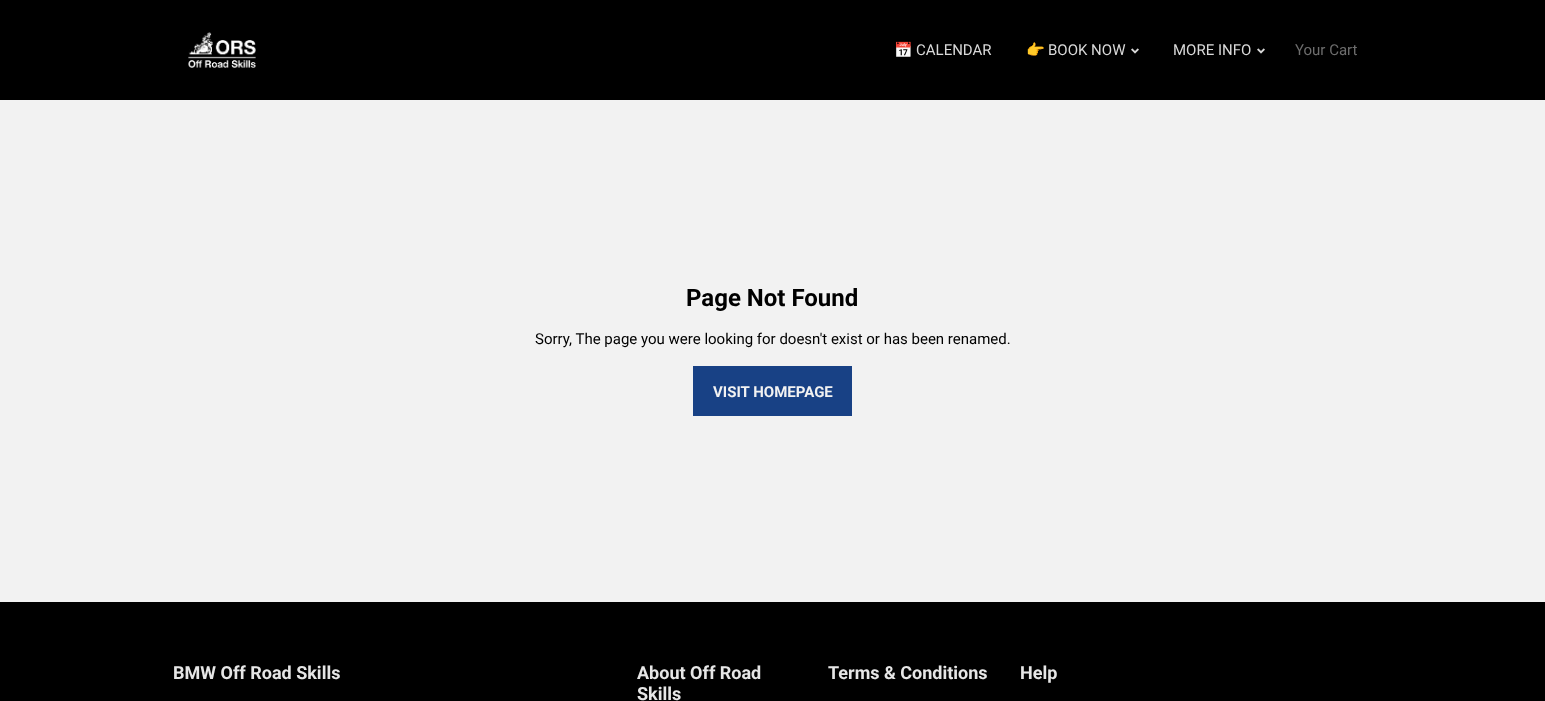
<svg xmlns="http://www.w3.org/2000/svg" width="1545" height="701">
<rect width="100%" height="100%" fill="#f2f2f2"/>
<rect width="1545" height="100" fill="#000"/>
<image x="188" y="32" width="68" height="36" href="media/1.png"/>
<text x="894" y="55" style="font-family:Noto Color Emoji;font-size:15px;fill:#d9d9d9">📅</text>
<text x="916" y="55" style="font-family:Roboto;font-size:15px;fill:#d9d9d9">CALENDAR</text>
<text x="1026" y="55" style="font-family:Noto Color Emoji;font-size:15px;fill:#d9d9d9">👉</text>
<text x="1048" y="55" style="font-family:Roboto;font-size:15px;fill:#d9d9d9">BOOK NOW</text>
<image x="1131" y="48" width="8" height="6" href="media/2.png"/>
<text x="1173" y="55" style="font-family:Roboto;font-size:15px;fill:#d9d9d9">MORE INFO</text>
<image x="1257" y="48" width="8" height="6" href="media/2.png"/>
<text x="1295" y="55" style="font-family:Roboto;font-size:15px;fill:#6d6d6d">Your Cart</text>
<text x="686" y="306" style="font-family:Roboto;font-size:24px;font-weight:bold;fill:#000">Page Not Found</text>
<text x="535" y="344" style="font-family:Roboto;font-size:15px;fill:#000">Sorry, The page you were looking for doesn't exist or has been renamed.</text>
<rect x="693" y="366" width="159" height="50" fill="#184185"/>
<text x="713" y="397" style="font-family:Roboto;font-size:15px;font-weight:bold;fill:#f2f2f2">VISIT HOMEPAGE</text>
<rect y="602" width="1545" height="99" fill="#000"/>
<text x="173" y="679" style="font-family:Roboto;font-size:18px;font-weight:bold;fill:#e6e6e6">BMW Off Road Skills</text>
<text x="637" y="679" style="font-family:Roboto;font-size:18px;font-weight:bold;fill:#e6e6e6">About Off Road</text>
<text x="637" y="700" style="font-family:Roboto;font-size:18px;font-weight:bold;fill:#e6e6e6">Skills</text>
<text x="828" y="679" style="font-family:Roboto;font-size:18px;font-weight:bold;fill:#e6e6e6">Terms &amp; Conditions</text>
<text x="1020" y="679" style="font-family:Roboto;font-size:18px;font-weight:bold;fill:#e6e6e6">Help</text>
</svg>
